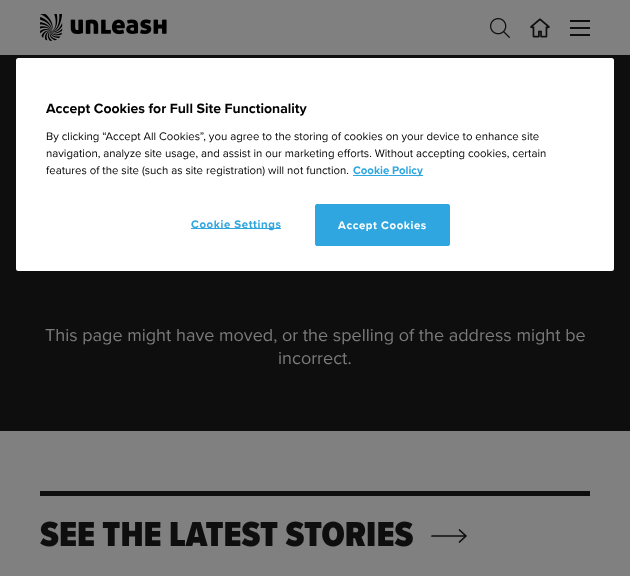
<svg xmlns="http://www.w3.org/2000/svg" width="630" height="576">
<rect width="100%" height="100%" fill="#808080"/>
<image x="40" y="14" width="127" height="27" href="media/1.png"/>
<image x="490" y="18" width="20" height="20" href="media/2.png"/>
<image x="530" y="18" width="20" height="20" href="media/3.png"/>
<rect x="570" y="20" width="20" height="2" fill="#0e0e0e"/>
<rect x="570" y="27" width="20" height="2" fill="#0e0e0e"/>
<rect x="570" y="34" width="20" height="2" fill="#0e0e0e"/>
<rect y="55" width="630" height="376" fill="#0e0e0e"/>
<rect x="16" y="58" width="598" height="213" rx="2.5" fill="#fff"/>
<text x="46" y="113" style="font-family:Proxima Nova;font-size:14px;font-weight:bold;fill:#000">Accept Cookies for Full Site Functionality</text>
<text x="46" y="140" style="font-family:Proxima Nova;font-size:11.4px;fill:#000">By clicking “Accept All Cookies”, you agree to the storing of cookies on your device to enhance site</text>
<text x="46" y="157" style="font-family:Proxima Nova;font-size:11.4px;fill:#000">navigation, analyze site usage, and assist in our marketing efforts. Without accepting cookies, certain</text>
<text x="46" y="174" style="font-family:Proxima Nova;font-size:11.4px;fill:#000">features of the site (such as site registration) will not function.</text>
<rect x="353" y="175" width="70" height="1" fill="#2fa6df"/>
<text x="353" y="174" style="font-family:Proxima Nova;font-size:11.4px;font-weight:bold;fill:#2fa6df">Cookie Policy</text>
<rect x="191" y="228" width="90" height="1" fill="#2fa6df"/>
<text x="191" y="228" style="font-family:Proxima Nova;font-size:11.4px;font-weight:bold;letter-spacing:0.6px;fill:#2fa6df">Cookie Settings</text>
<rect x="315.5" y="204.5" width="134" height="41" rx="1.5" fill="#2fa6df" stroke="#2fa6df"/>
<text x="338" y="229" style="font-family:Proxima Nova;font-size:11.4px;font-weight:bold;letter-spacing:0.6px;fill:#fff">Accept Cookies</text>
<text x="45" y="341" style="font-family:Proxima Nova;font-size:18px;fill:#7b7b7b">This page might have moved, or the spelling of the address might be</text>
<text x="278" y="364" style="font-family:Proxima Nova;font-size:18px;fill:#7b7b7b">incorrect.</text>
<rect x="40" y="491" width="550" height="5" fill="#0e0e0e"/>
<text x="40" y="546" style="font-family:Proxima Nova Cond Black;font-size:36px;font-weight:900;fill:#0e0e0e">SEE THE LATEST STORIES</text>
<path d="M459.5 542l6.5-6l-6.5-6m4.5 6h-32" fill="none" stroke="#0e0e0e" stroke-width="1.7" stroke-linecap="round" stroke-linejoin="round"/>
</svg>
